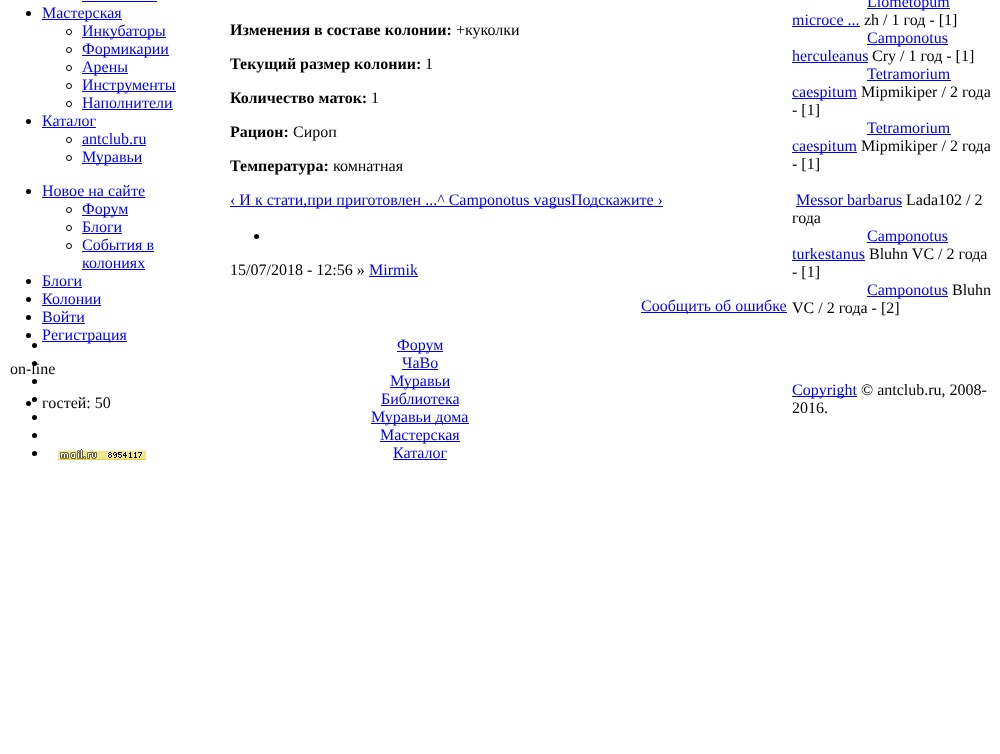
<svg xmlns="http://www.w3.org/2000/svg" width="1000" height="754">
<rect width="100%" height="100%" fill="#fff"/>
<rect x="82" y="1" width="75" height="1" fill="#00e"/>
<circle cx="28.5" cy="13.5" r="2.5" fill="#000"/>
<rect x="42" y="19" width="80" height="1" fill="#00e"/>
<text x="42" y="18" style="font-family:Liberation Serif;font-size:16px;fill:#00e">Мастерская</text>
<circle cx="69" cy="32" r="2.5" fill="none" stroke="#000"/>
<rect x="82" y="37" width="84" height="1" fill="#00e"/>
<text x="82" y="36" style="font-family:Liberation Serif;font-size:16px;fill:#00e">Инкубаторы</text>
<circle cx="69" cy="50" r="2.5" fill="none" stroke="#000"/>
<rect x="82" y="55" width="87" height="1" fill="#00e"/>
<text x="82" y="54" style="font-family:Liberation Serif;font-size:16px;fill:#00e">Формикарии</text>
<circle cx="69" cy="68" r="2.5" fill="none" stroke="#000"/>
<rect x="82" y="73" width="46" height="1" fill="#00e"/>
<text x="82" y="72" style="font-family:Liberation Serif;font-size:16px;fill:#00e">Арены</text>
<circle cx="69" cy="86" r="2.5" fill="none" stroke="#000"/>
<rect x="82" y="91" width="94" height="1" fill="#00e"/>
<text x="82" y="90" style="font-family:Liberation Serif;font-size:16px;fill:#00e">Инструменты</text>
<circle cx="69" cy="104" r="2.5" fill="none" stroke="#000"/>
<text x="82" y="108" style="font-family:Liberation Serif;font-size:16px;fill:#00e">Наполнители</text>
<rect x="82" y="109" width="91" height="1" fill="#00e"/>
<circle cx="28.5" cy="121.5" r="2.5" fill="#000"/>
<text x="42" y="126" style="font-family:Liberation Serif;font-size:16px;fill:#00e">Каталог</text>
<rect x="42" y="127" width="54" height="1" fill="#00e"/>
<circle cx="69" cy="140" r="2.5" fill="none" stroke="#000"/>
<text x="82" y="144" style="font-family:Liberation Serif;font-size:16px;fill:#00e">antclub.ru</text>
<rect x="82" y="145" width="64" height="1" fill="#00e"/>
<circle cx="69" cy="158" r="2.5" fill="none" stroke="#000"/>
<rect x="82" y="163" width="60" height="1" fill="#00e"/>
<text x="82" y="162" style="font-family:Liberation Serif;font-size:16px;fill:#00e">Муравьи</text>
<circle cx="28.5" cy="191.5" r="2.5" fill="#000"/>
<text x="42" y="196" style="font-family:Liberation Serif;font-size:16px;fill:#00e">Новое на сайте</text>
<rect x="42" y="197" width="103" height="1" fill="#00e"/>
<circle cx="69" cy="210" r="2.5" fill="none" stroke="#000"/>
<rect x="82" y="215" width="46" height="1" fill="#00e"/>
<text x="82" y="214" style="font-family:Liberation Serif;font-size:16px;fill:#00e">Форум</text>
<circle cx="69" cy="228" r="2.5" fill="none" stroke="#000"/>
<text x="82" y="232" style="font-family:Liberation Serif;font-size:16px;fill:#00e">Блоги</text>
<rect x="82" y="233" width="40" height="1" fill="#00e"/>
<circle cx="69" cy="246" r="2.5" fill="none" stroke="#000"/>
<text x="82" y="250" style="font-family:Liberation Serif;font-size:16px;fill:#00e">События в</text>
<rect x="82" y="251" width="72" height="1" fill="#00e"/>
<text x="82" y="268" style="font-family:Liberation Serif;font-size:16px;fill:#00e">колониях</text>
<rect x="82" y="269" width="63" height="1" fill="#00e"/>
<circle cx="28.5" cy="281.5" r="2.5" fill="#000"/>
<text x="42" y="286" style="font-family:Liberation Serif;font-size:16px;fill:#00e">Блоги</text>
<rect x="42" y="287" width="40" height="1" fill="#00e"/>
<circle cx="28.5" cy="299.5" r="2.5" fill="#000"/>
<text x="42" y="304" style="font-family:Liberation Serif;font-size:16px;fill:#00e">Колонии</text>
<rect x="42" y="305" width="59" height="1" fill="#00e"/>
<circle cx="28.5" cy="317.5" r="2.5" fill="#000"/>
<text x="42" y="322" style="font-family:Liberation Serif;font-size:16px;fill:#00e">Войти</text>
<rect x="42" y="323" width="43" height="1" fill="#00e"/>
<circle cx="28.5" cy="335.5" r="2.5" fill="#000"/>
<rect x="42" y="341" width="85" height="1" fill="#00e"/>
<text x="42" y="340" style="font-family:Liberation Serif;font-size:16px;fill:#00e">Peгиcтpaция</text>
<circle cx="34.5" cy="363.5" r="2.5" fill="#000"/>
<text x="10" y="374" style="font-family:Liberation Serif;font-size:16px;fill:#000">on-line</text>
<circle cx="28.5" cy="403.5" r="2.5" fill="#000"/>
<text x="42" y="408" style="font-family:Liberation Serif;font-size:16px;fill:#000">гостей: 50</text>
<image x="58" y="449" width="88" height="11" href="media/1.png"/>
<text x="230" y="35" style="font-family:Liberation Serif;font-size:16px;font-weight:bold;fill:#000">Изменения в составе кoлонии:</text>
<text x="456" y="35" style="font-family:Liberation Serif;font-size:16px;fill:#000">+куколки</text>
<text x="230" y="69" style="font-family:Liberation Serif;font-size:16px;font-weight:bold;fill:#000">Текущий размер кoлонии:</text>
<text x="425" y="69" style="font-family:Liberation Serif;font-size:16px;fill:#000">1</text>
<text x="230" y="103" style="font-family:Liberation Serif;font-size:16px;font-weight:bold;fill:#000">Количество маток:</text>
<text x="371" y="103" style="font-family:Liberation Serif;font-size:16px;fill:#000">1</text>
<text x="230" y="137" style="font-family:Liberation Serif;font-size:16px;font-weight:bold;fill:#000">Рацион:</text>
<text x="293" y="137" style="font-family:Liberation Serif;font-size:16px;fill:#000">Сироп</text>
<text x="230" y="171" style="font-family:Liberation Serif;font-size:16px;font-weight:bold;fill:#000">Температура:</text>
<text x="333" y="171" style="font-family:Liberation Serif;font-size:16px;fill:#000">комнатная</text>
<rect x="230" y="206" width="433" height="1" fill="#00e"/>
<text x="230" y="205" style="font-family:Liberation Serif;font-size:16px;fill:#00e">‹ И к стати,при приготовлен ...^ Camponotus vagusПодскажите ›</text>
<circle cx="256.5" cy="236.5" r="2.5" fill="#000"/>
<text x="230" y="275" style="font-family:Liberation Serif;font-size:16px;fill:#000">15/07/2018 - 12:56 »</text>
<text x="369" y="275" style="font-family:Liberation Serif;font-size:16px;fill:#00e">Mirmik</text>
<rect x="369" y="276" width="49" height="1" fill="#00e"/>
<rect x="641" y="312" width="146" height="1" fill="#00e"/>
<text x="641" y="311" style="font-family:Liberation Serif;font-size:16px;fill:#00e">Сообщить об ошибке</text>
<rect x="867" y="8" width="83" height="1" fill="#00e"/>
<text x="867" y="7" style="font-family:Liberation Serif;font-size:16px;fill:#00e">Liometopum</text>
<text x="792" y="25" style="font-family:Liberation Serif;font-size:16px;fill:#00e">microce ...</text>
<rect x="792" y="26" width="68" height="1" fill="#00e"/>
<text x="864" y="25" style="font-family:Liberation Serif;font-size:16px;fill:#000">zh / 1 год - [1]</text>
<rect x="867" y="44" width="81" height="1" fill="#00e"/>
<text x="867" y="43" style="font-family:Liberation Serif;font-size:16px;fill:#00e">Camponotus</text>
<text x="792" y="61" style="font-family:Liberation Serif;font-size:16px;fill:#00e">herculeanus</text>
<rect x="792" y="62" width="76" height="1" fill="#00e"/>
<text x="872" y="61" style="font-family:Liberation Serif;font-size:16px;fill:#000">Cry / 1 год - [1]</text>
<text x="867" y="79" style="font-family:Liberation Serif;font-size:16px;fill:#00e">Tetramorium</text>
<rect x="867" y="80" width="84" height="1" fill="#00e"/>
<rect x="792" y="98" width="65" height="1" fill="#00e"/>
<text x="792" y="97" style="font-family:Liberation Serif;font-size:16px;fill:#00e">caespitum</text>
<text x="861" y="97" style="font-family:Liberation Serif;font-size:16px;fill:#000">Mipmikiper / 2 года</text>
<text x="792" y="115" style="font-family:Liberation Serif;font-size:16px;fill:#000">- [1]</text>
<text x="867" y="133" style="font-family:Liberation Serif;font-size:16px;fill:#00e">Tetramorium</text>
<rect x="867" y="134" width="84" height="1" fill="#00e"/>
<rect x="792" y="152" width="65" height="1" fill="#00e"/>
<text x="792" y="151" style="font-family:Liberation Serif;font-size:16px;fill:#00e">caespitum</text>
<text x="861" y="151" style="font-family:Liberation Serif;font-size:16px;fill:#000">Mipmikiper / 2 года</text>
<text x="792" y="169" style="font-family:Liberation Serif;font-size:16px;fill:#000">- [1]</text>
<text x="796" y="205" style="font-family:Liberation Serif;font-size:16px;fill:#00e">Messor barbarus</text>
<rect x="796" y="206" width="106" height="1" fill="#00e"/>
<text x="906" y="205" style="font-family:Liberation Serif;font-size:16px;fill:#000">Lada102 / 2</text>
<text x="792" y="223" style="font-family:Liberation Serif;font-size:16px;fill:#000">года</text>
<rect x="867" y="242" width="81" height="1" fill="#00e"/>
<text x="867" y="241" style="font-family:Liberation Serif;font-size:16px;fill:#00e">Camponotus</text>
<text x="792" y="259" style="font-family:Liberation Serif;font-size:16px;fill:#00e">turkestanus</text>
<rect x="792" y="260" width="73" height="1" fill="#00e"/>
<text x="869" y="259" style="font-family:Liberation Serif;font-size:16px;fill:#000">Bluhn VC / 2 года</text>
<text x="792" y="277" style="font-family:Liberation Serif;font-size:16px;fill:#000">- [1]</text>
<rect x="867" y="296" width="81" height="1" fill="#00e"/>
<text x="867" y="295" style="font-family:Liberation Serif;font-size:16px;fill:#00e">Camponotus</text>
<text x="952" y="295" style="font-family:Liberation Serif;font-size:16px;fill:#000">Bluhn</text>
<text x="792" y="313" style="font-family:Liberation Serif;font-size:16px;fill:#000">VC / 2 года - [2]</text>
<circle cx="34.5" cy="345.5" r="2.5" fill="#000"/>
<rect x="397" y="351" width="46" height="1" fill="#00e"/>
<text x="397" y="350" style="font-family:Liberation Serif;font-size:16px;fill:#00e">Форум</text>
<text x="402" y="368" style="font-family:Liberation Serif;font-size:16px;fill:#00e">ЧаВо</text>
<rect x="402" y="369" width="36" height="1" fill="#00e"/>
<circle cx="34.5" cy="381.5" r="2.5" fill="#000"/>
<rect x="390" y="387" width="60" height="1" fill="#00e"/>
<text x="390" y="386" style="font-family:Liberation Serif;font-size:16px;fill:#00e">Муравьи</text>
<circle cx="34.5" cy="399.5" r="2.5" fill="#000"/>
<text x="381" y="404" style="font-family:Liberation Serif;font-size:16px;fill:#00e">Библиотека</text>
<rect x="381" y="405" width="78" height="1" fill="#00e"/>
<circle cx="34.5" cy="417.5" r="2.5" fill="#000"/>
<rect x="371" y="423" width="98" height="1" fill="#00e"/>
<text x="371" y="422" style="font-family:Liberation Serif;font-size:16px;fill:#00e">Муравьи дома</text>
<circle cx="34.5" cy="435.5" r="2.5" fill="#000"/>
<rect x="380" y="441" width="80" height="1" fill="#00e"/>
<text x="380" y="440" style="font-family:Liberation Serif;font-size:16px;fill:#00e">Мастерская</text>
<circle cx="34.5" cy="453.5" r="2.5" fill="#000"/>
<text x="393" y="458" style="font-family:Liberation Serif;font-size:16px;fill:#00e">Каталог</text>
<rect x="393" y="459" width="54" height="1" fill="#00e"/>
<rect x="792" y="396" width="65" height="1" fill="#00e"/>
<text x="792" y="395" style="font-family:Liberation Serif;font-size:16px;fill:#00e">Copyright</text>
<text x="861" y="395" style="font-family:Liberation Serif;font-size:16px;fill:#000">© antclub.ru, 2008-</text>
<text x="792" y="413" style="font-family:Liberation Serif;font-size:16px;fill:#000">2016.</text>
</svg>
